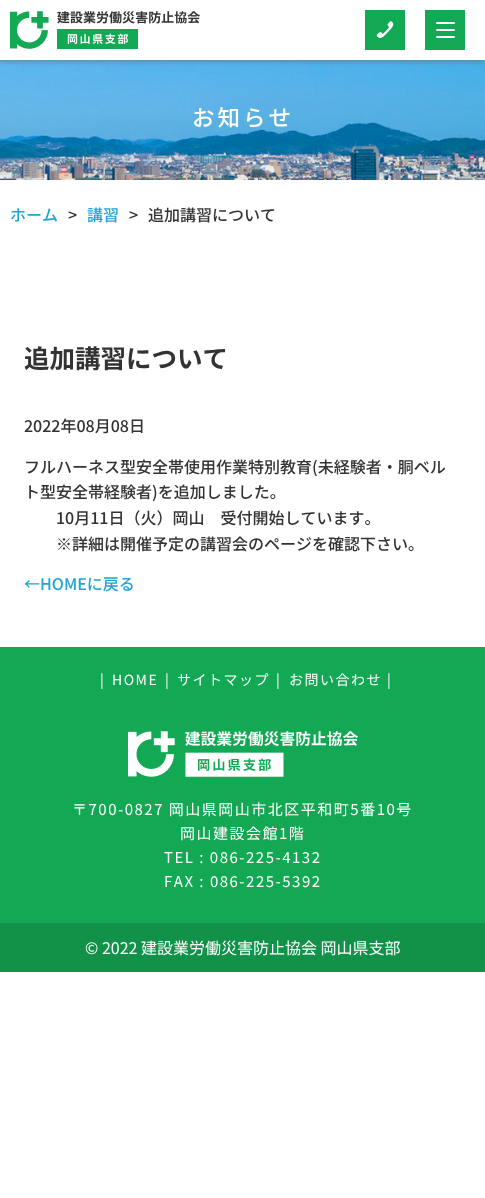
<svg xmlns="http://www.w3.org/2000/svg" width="485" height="1198">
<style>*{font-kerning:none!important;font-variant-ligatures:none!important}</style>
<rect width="100%" height="100%" fill="#fff"/>
<image x="0" y="60" width="485" height="120" href="media/3.png"/>
<rect y="2" width="485" height="60" fill="#66666680" filter="blur(2.5px)"/>
<rect width="485" height="60" fill="#fff"/>
<image x="10" y="11" width="190" height="38" href="media/1.png"/>
<rect x="365" y="10" width="40" height="40" fill="#13a854"/>
<image x="376" y="21" width="18" height="17" href="media/2.png"/>
<rect x="425" y="10" width="40" height="40" fill="#13a854"/>
<rect x="436" y="22" width="19" height="2" rx="1" fill="#fff"/>
<rect x="436" y="29" width="19" height="2" rx="1" fill="#fff"/>
<rect x="436" y="36" width="19" height="2" rx="1" fill="#fff"/>
<text x="192" y="126" style="font-family:Noto Sans JP;font-size:22.5px;font-weight:500;letter-spacing:3px;fill:#fff">お知らせ</text>
<text x="10" y="221" style="font-family:Noto Sans JP;font-size:16px;font-weight:500;fill:#21a4d4">ホーム</text>
<text x="68" y="221" style="font-family:Noto Sans JP;font-size:16px;font-weight:500;fill:#333">&gt;</text>
<text x="87" y="221" style="font-family:Noto Sans JP;font-size:16px;font-weight:500;fill:#21a4d4">講習</text>
<text x="129" y="221" style="font-family:Noto Sans JP;font-size:16px;font-weight:500;fill:#333">&gt;</text>
<text x="148" y="221" style="font-family:Noto Sans JP;font-size:16px;font-weight:500;fill:#333">追加講習について</text>
<text x="24" y="368" style="font-family:Noto Sans JP;font-size:25.5px;font-weight:bold;fill:#333">追加講習について</text>
<text x="24" y="432" style="font-family:Noto Sans JP;font-size:16px;font-weight:500;fill:#333">2022年08月08日</text>
<text x="24" y="473" style="font-family:Noto Sans JP;font-size:16px;font-weight:500;fill:#333">フルハーネス型安全帯使用作業特別教育(未経験者・胴ベル</text>
<text x="24" y="498" style="font-family:Noto Sans JP;font-size:16px;font-weight:500;fill:#333">ト型安全帯経験者)を追加しました。</text>
<text x="56" y="524" style="font-family:Noto Sans JP;font-size:16px;font-weight:500;fill:#333">10月11日（火）岡山　受付開始しています。</text>
<text x="56" y="550" style="font-family:Noto Sans JP;font-size:16px;font-weight:500;fill:#333">※詳細は開催予定の講習会のページを確認下さい。</text>
<text x="24" y="590" style="font-family:Noto Sans JP;font-size:16px;font-weight:500;fill:#21a4d4">←HOMEに戻る</text>
<rect y="647" width="485" height="276" fill="#13a854"/>
<text x="100" y="685" style="font-family:Noto Sans JP;font-size:14px;letter-spacing:1.5px;fill:#fff">|</text>
<text x="112" y="685" style="font-family:Noto Sans JP;font-size:14px;letter-spacing:1.5px;fill:#fff">HOME</text>
<text x="165" y="685" style="font-family:Noto Sans JP;font-size:14px;letter-spacing:1.5px;fill:#fff">|</text>
<text x="177" y="685" style="font-family:Noto Sans JP;font-size:14px;letter-spacing:1.5px;fill:#fff">サイトマップ</text>
<text x="276" y="685" style="font-family:Noto Sans JP;font-size:14px;letter-spacing:1.5px;fill:#fff">|</text>
<text x="289" y="685" style="font-family:Noto Sans JP;font-size:14px;letter-spacing:1.5px;fill:#fff">お問い合わせ</text>
<text x="387" y="685" style="font-family:Noto Sans JP;font-size:14px;letter-spacing:1.5px;fill:#fff">|</text>
<image x="128" y="731" width="230" height="46" href="media/4.png"/>
<text x="72" y="815" style="font-family:Noto Sans JP;font-size:15px;letter-spacing:1.5px;fill:#fff">〒700-0827 岡山県岡山市北区平和町5番10号</text>
<text x="180" y="839" style="font-family:Noto Sans JP;font-size:15px;letter-spacing:1.5px;fill:#fff">岡山建設会館1階</text>
<text x="164" y="863" style="font-family:Noto Sans JP;font-size:15px;letter-spacing:1.5px;fill:#fff">TEL : 086-225-4132</text>
<text x="164" y="887" style="font-family:Noto Sans JP;font-size:15px;letter-spacing:1.5px;fill:#fff">FAX : 086-225-5392</text>
<rect y="923" width="485" height="49" fill="#129149"/>
<text x="85" y="954" style="font-family:Noto Sans JP;font-size:16px;fill:#fff">© 2022 建設業労働災害防止協会 岡山県支部</text>
</svg>
